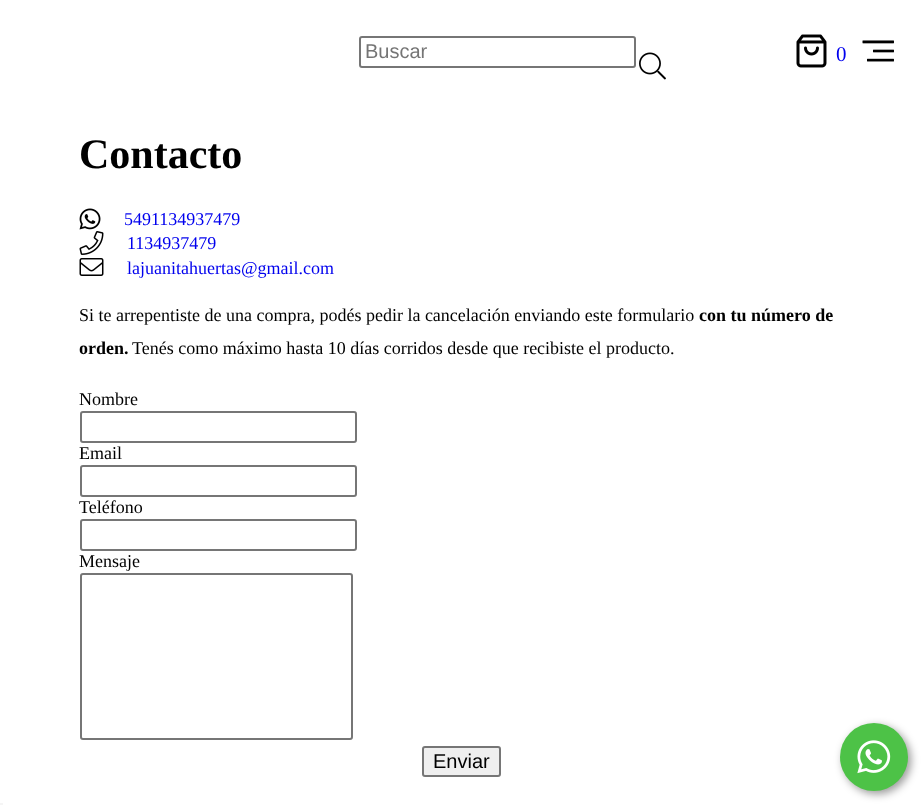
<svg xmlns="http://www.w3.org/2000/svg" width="922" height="805">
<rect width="100%" height="100%" fill="#fff"/>
<rect x="360" y="37" width="275" height="30" rx="2" fill="none" stroke="#767676" stroke-width="2"/>
<text x="365" y="58" style="font-family:Liberation Sans;font-size:20px;fill:#757575">Buscar</text>
<image x="639" y="52" width="27" height="28" href="media/1.png"/>
<image x="796" y="34" width="31" height="34" href="media/2.png"/>
<text x="836" y="61" style="font-family:Liberation Serif;font-size:21px;fill:#00e">0</text>
<image x="862" y="40" width="32" height="22" href="media/3.png"/>
<text x="79" y="168" style="font-family:Liberation Serif;font-size:42px;font-weight:bold;fill:#000">Contacto</text>
<rect y="803" width="3" height="2" fill="#f5f5f5"/>
<image x="79" y="208" width="22" height="22" href="media/4.png"/>
<text x="124" y="225" style="font-family:Liberation Serif;font-size:18px;fill:#00e">5491134937479</text>
<image x="79" y="231" width="25" height="24" href="media/5.png"/>
<text x="127" y="249" style="font-family:Liberation Serif;font-size:18px;fill:#00e">1134937479</text>
<image x="79" y="258" width="25" height="18" href="media/6.png"/>
<text x="127" y="274" style="font-family:Liberation Serif;font-size:18px;fill:#00e">lajuanitahuertas@gmail.com</text>
<text x="79" y="321" style="font-family:Liberation Serif;font-size:18px;fill:#000">Si te arrepentiste de una compra, podés pedir la cancelación enviando este formulario</text>
<text x="699" y="321" style="font-family:Liberation Serif;font-size:18px;font-weight:bold;fill:#000">con tu número de</text>
<text x="79" y="354" style="font-family:Liberation Serif;font-size:18px;font-weight:bold;fill:#000">orden.</text>
<text x="132" y="354" style="font-family:Liberation Serif;font-size:18px;fill:#000">Tenés como máximo hasta 10 días corridos desde que recibiste el producto.</text>
<text x="79" y="405" style="font-family:Liberation Serif;font-size:18px;fill:#000">Nombre</text>
<rect x="81" y="412" width="275" height="30" rx="2" fill="none" stroke="#767676" stroke-width="2"/>
<text x="79" y="459" style="font-family:Liberation Serif;font-size:18px;fill:#000">Email</text>
<rect x="81" y="466" width="275" height="30" rx="2" fill="none" stroke="#767676" stroke-width="2"/>
<text x="79" y="513" style="font-family:Liberation Serif;font-size:18px;fill:#000">Teléfono</text>
<rect x="81" y="520" width="275" height="30" rx="2" fill="none" stroke="#767676" stroke-width="2"/>
<text x="79" y="567" style="font-family:Liberation Serif;font-size:18px;fill:#000">Mensaje</text>
<rect x="81" y="574" width="271" height="165" rx="2" fill="none" stroke="#767676" stroke-width="2"/>
<rect x="423" y="747" width="77" height="29" rx="2" fill="#efefef" stroke="#767676" stroke-width="2"/>
<text x="433" y="768" style="font-family:Liberation Sans;font-size:20px;fill:#000">Enviar</text>
<rect x="843" y="726" width="68" height="68" rx="34" fill="#00000066" filter="blur(4.5px)"/>
<circle cx="874" cy="757" r="34" fill="#4dc247"/>
<image x="857" y="740" width="34" height="34" href="media/7.png"/>
</svg>
